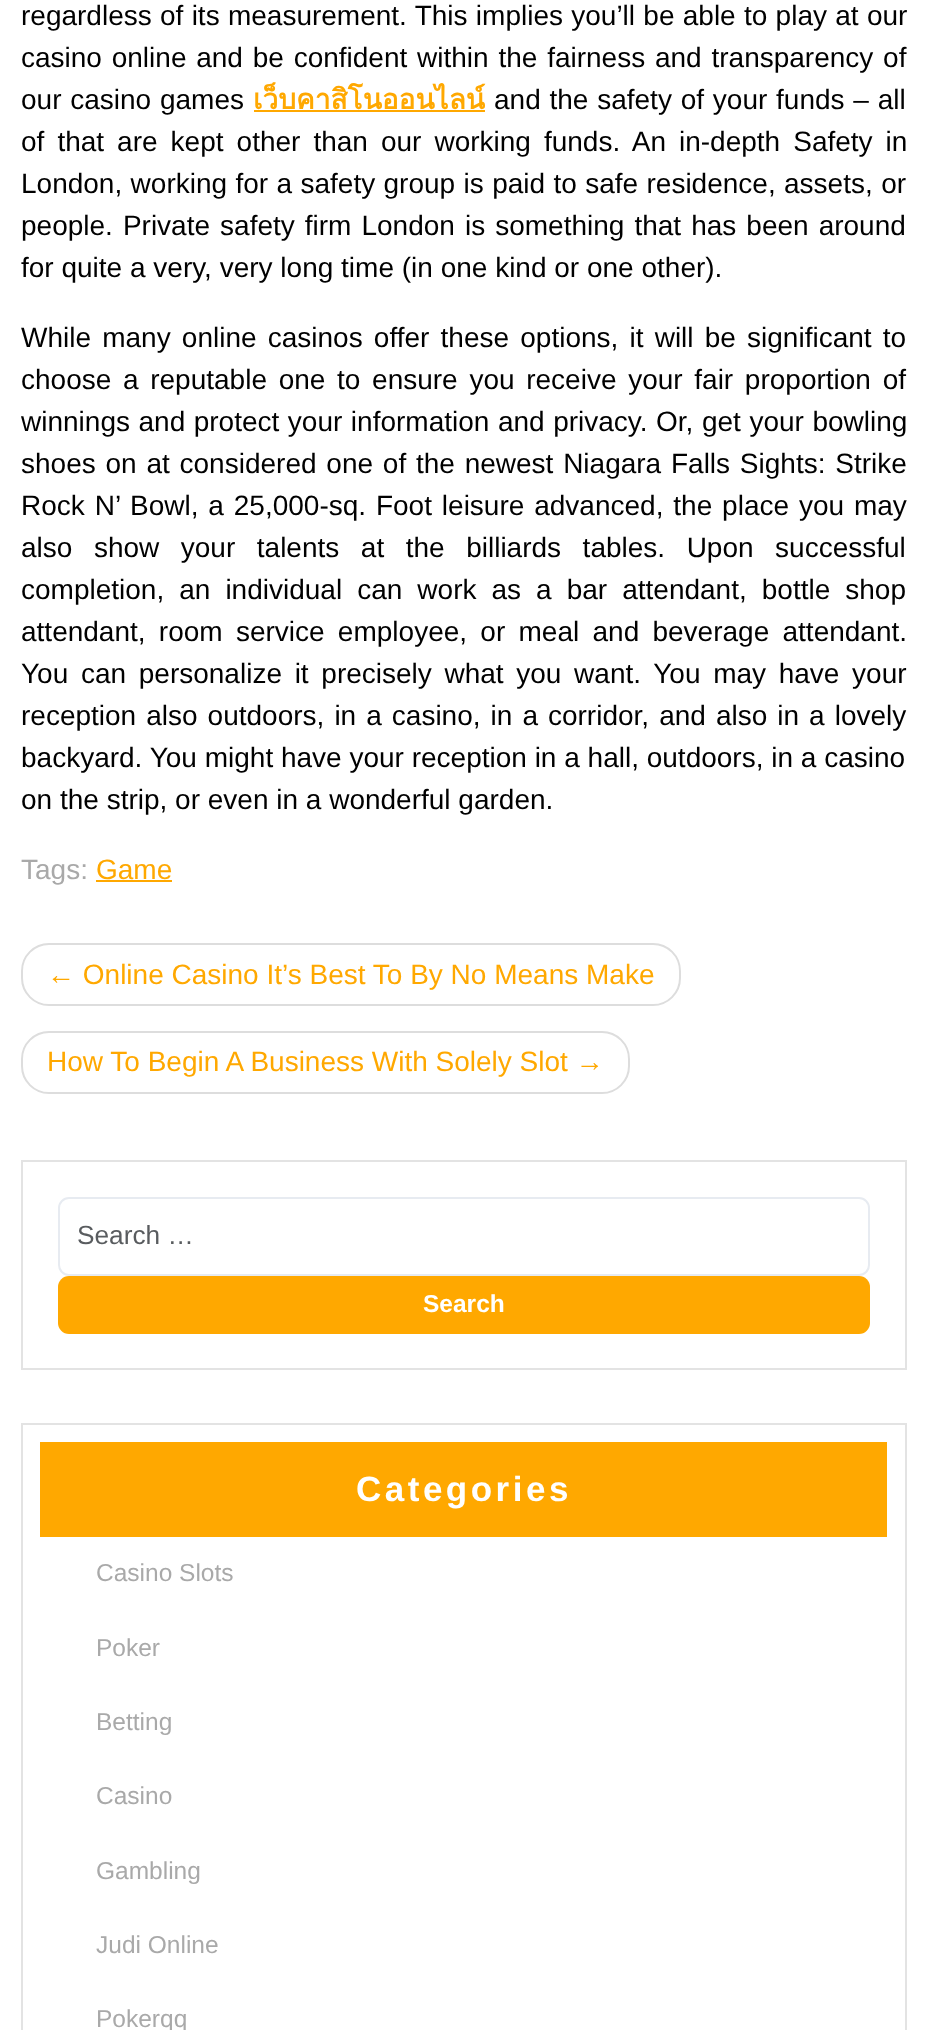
<svg xmlns="http://www.w3.org/2000/svg" width="927" height="2030">
<rect width="100%" height="100%" fill="#fff"/>
<text x="21" y="25" word-spacing="0.5" style="font-family:Liberation Sans;font-size:28px;fill:#000">regardless of its measurement. This implies you’ll be able to play at our</text>
<text x="21" y="67" word-spacing="2" style="font-family:Liberation Sans;font-size:28px;fill:#000">casino online and be confident within the fairness and transparency of</text>
<text x="21" y="109" word-spacing="1" style="font-family:Liberation Sans;font-size:28px;fill:#000">our casino games</text>
<text x="253" y="109" style="font-family:Loma;font-size:28px;font-weight:bold;fill:#ffa800">เว็บคาสิโนออนไลน์</text>
<rect x="254" y="110" width="231" height="2" fill="#ffa800"/>
<text x="494" y="109" word-spacing="1" style="font-family:Liberation Sans;font-size:28px;fill:#000">and the safety of your funds – all</text>
<text x="21" y="151" word-spacing="5.25" style="font-family:Liberation Sans;font-size:28px;fill:#000">of that are kept other than our working funds. An in-depth Safety in</text>
<text x="21" y="193" word-spacing="0.6" style="font-family:Liberation Sans;font-size:28px;fill:#000">London, working for a safety group is paid to safe residence, assets, or</text>
<text x="21" y="235" word-spacing="2.25" style="font-family:Liberation Sans;font-size:28px;fill:#000">people. Private safety firm London is something that has been around</text>
<text x="21" y="277" style="font-family:Liberation Sans;font-size:28px;fill:#000">for quite a very, very long time (in one kind or one other).</text>
<text x="21" y="347" word-spacing="3.4" style="font-family:Liberation Sans;font-size:28px;fill:#000">While many online casinos offer these options, it will be significant to</text>
<text x="21" y="389" word-spacing="3.9" style="font-family:Liberation Sans;font-size:28px;fill:#000">choose a reputable one to ensure you receive your fair proportion of</text>
<text x="21" y="431" word-spacing="0.75" style="font-family:Liberation Sans;font-size:28px;fill:#000">winnings and protect your information and privacy. Or, get your bowling</text>
<text x="21" y="473" word-spacing="2" style="font-family:Liberation Sans;font-size:28px;fill:#000">shoes on at considered one of the newest Niagara Falls Sights: Strike</text>
<text x="21" y="515" word-spacing="2.1" style="font-family:Liberation Sans;font-size:28px;fill:#000">Rock N’ Bowl, a 25,000-sq. Foot leisure advanced, the place you may</text>
<text x="21" y="557" word-spacing="13.75" style="font-family:Liberation Sans;font-size:28px;fill:#000">also show your talents at the billiards tables. Upon successful</text>
<text x="21" y="599" word-spacing="7.25" style="font-family:Liberation Sans;font-size:28px;fill:#000">completion, an individual can work as a bar attendant, bottle shop</text>
<text x="21" y="641" word-spacing="5.5" style="font-family:Liberation Sans;font-size:28px;fill:#000">attendant, room service employee, or meal and beverage attendant.</text>
<text x="21" y="683" word-spacing="4.9" style="font-family:Liberation Sans;font-size:28px;fill:#000">You can personalize it precisely what you want. You may have your</text>
<text x="21" y="725" word-spacing="2.25" style="font-family:Liberation Sans;font-size:28px;fill:#000">reception also outdoors, in a casino, in a corridor, and also in a lovely</text>
<text x="21" y="767" style="font-family:Liberation Sans;font-size:28px;fill:#000">backyard. You might have your reception in a hall, outdoors, in a casino</text>
<text x="21" y="809" style="font-family:Liberation Sans;font-size:28px;fill:#000">on the strip, or even in a wonderful garden.</text>
<text x="21" y="879" style="font-family:Liberation Sans;font-size:28px;fill:#a9a9a9">Tags:</text>
<text x="96" y="879" style="font-family:Liberation Sans;font-size:28px;fill:#ffa800">Game</text>
<rect x="96" y="880" width="76" height="2" fill="#ffa800"/>
<rect x="22" y="944" width="658" height="61" rx="27" fill="none" stroke="#ddd" stroke-width="2"/>
<text x="47" y="984" style="font-family:Liberation Sans;font-size:28px;fill:#ffa800">← Online Casino It’s Best To By No Means Make</text>
<rect x="22" y="1032" width="607" height="61" rx="27" fill="none" stroke="#ddd" stroke-width="2"/>
<text x="47" y="1071" style="font-family:Liberation Sans;font-size:28px;fill:#ffa800">How To Begin A Business With Solely Slot →</text>
<rect x="22" y="1161" width="884" height="208" fill="none" stroke="#e3e3e3" stroke-width="2"/>
<rect x="59" y="1198" width="810" height="77" rx="10" fill="none" stroke="#e7ebf1" stroke-width="2"/>
<text x="77" y="1244" style="font-family:Liberation Sans;font-size:26.25px;fill:#595c5f">Search …</text>
<rect x="58" y="1276" width="812" height="58" rx="11" fill="#ffa800"/>
<text x="423" y="1312" style="font-family:Liberation Sans;font-size:24.5px;font-weight:bold;fill:#fff">Search</text>
<rect x="22" y="1424" width="884" height="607" fill="none" stroke="#e3e3e3" stroke-width="2"/>
<rect x="40" y="1442" width="847" height="95" fill="#ffa800"/>
<text x="356" y="1501" style="font-family:Liberation Sans;font-size:35px;font-weight:bold;letter-spacing:3.5px;fill:#fff">Categories</text>
<text x="96" y="1581" style="font-family:Liberation Sans;font-size:24.5px;fill:#a9a9a9">Casino Slots</text>
<text x="96" y="1656" style="font-family:Liberation Sans;font-size:24.5px;fill:#a9a9a9">Poker</text>
<text x="96" y="1730" style="font-family:Liberation Sans;font-size:24.5px;fill:#a9a9a9">Betting</text>
<text x="96" y="1804" style="font-family:Liberation Sans;font-size:24.5px;fill:#a9a9a9">Casino</text>
<text x="96" y="1879" style="font-family:Liberation Sans;font-size:24.5px;fill:#a9a9a9">Gambling</text>
<text x="96" y="1953" style="font-family:Liberation Sans;font-size:24.5px;fill:#a9a9a9">Judi Online</text>
<text x="96" y="2027" style="font-family:Liberation Sans;font-size:24.5px;fill:#a9a9a9">Pokerqq</text>
</svg>
